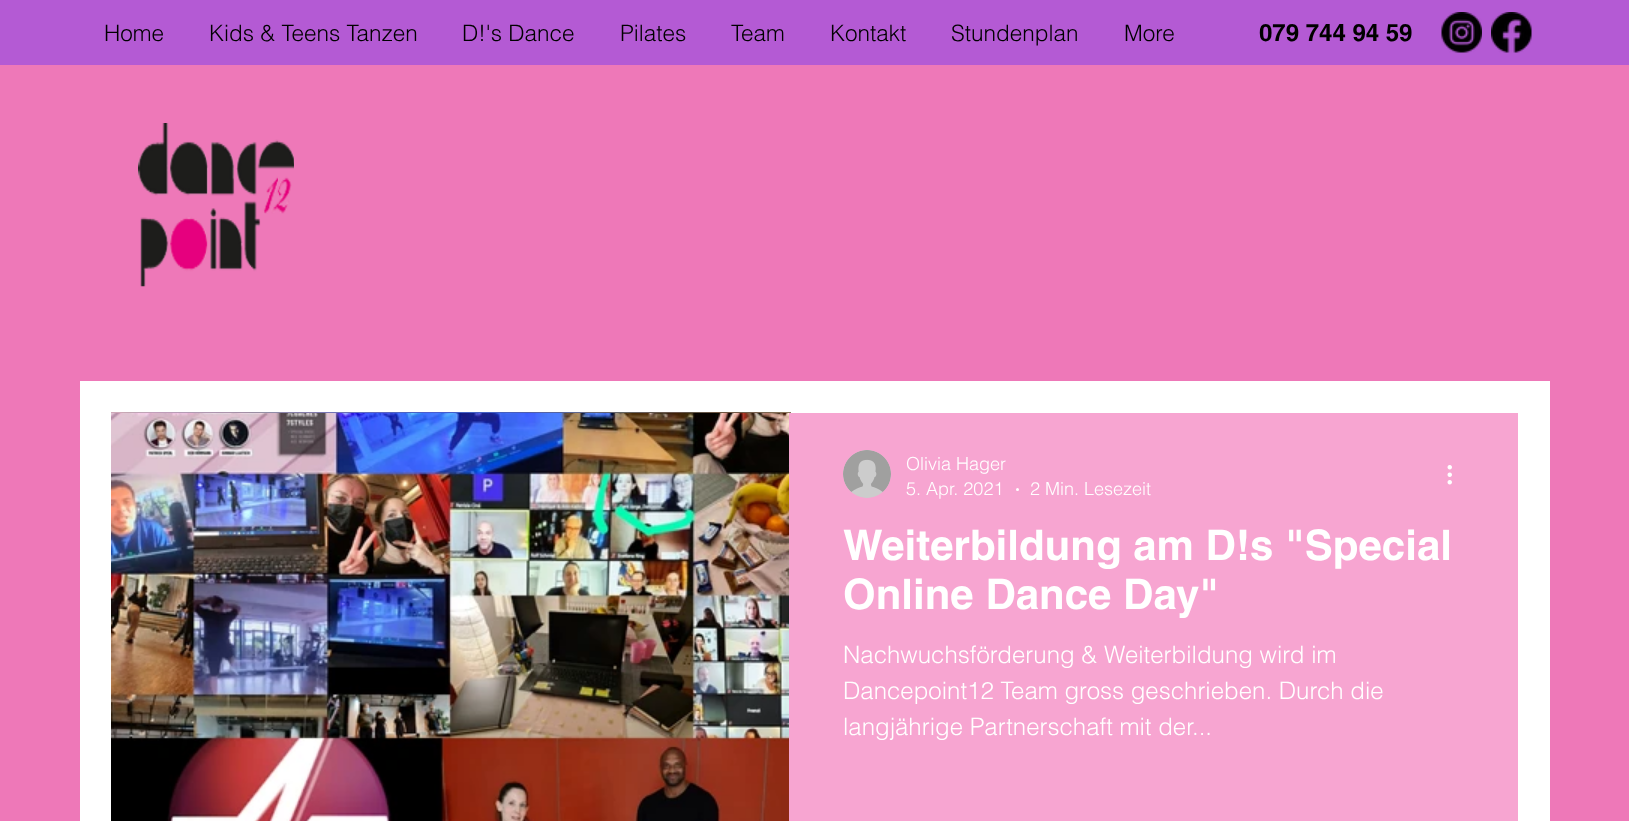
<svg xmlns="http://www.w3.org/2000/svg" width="1629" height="821">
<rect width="100%" height="100%" fill="#ee78b8"/>
<rect width="1629" height="65" fill="#b45ad4"/>
<text x="104" y="41" style="font-family:helvetica;font-size:22.5px;font-weight:300;fill:#000">Home</text>
<text x="209" y="41" style="font-family:helvetica;font-size:22.5px;font-weight:300;fill:#000">Kids &amp; Teens Tanzen</text>
<text x="462" y="41" style="font-family:helvetica;font-size:22.5px;font-weight:300;fill:#000">D!'s Dance</text>
<text x="620" y="41" style="font-family:helvetica;font-size:22.5px;font-weight:300;fill:#000">Pilates</text>
<text x="731" y="41" style="font-family:helvetica;font-size:22.5px;font-weight:300;fill:#000">Team</text>
<text x="830" y="41" style="font-family:helvetica;font-size:22.5px;font-weight:300;fill:#000">Kontakt</text>
<text x="951" y="41" style="font-family:helvetica;font-size:22.5px;font-weight:300;fill:#000">Stundenplan</text>
<text x="1124" y="41" style="font-family:helvetica;font-size:22.5px;font-weight:300;fill:#000">More</text>
<text x="1259" y="41" style="font-family:helvetica;font-size:24px;font-weight:bold;fill:#000">079 744 94 59</text>
<image x="1441" y="12" width="41" height="41" href="media/1.png"/>
<image x="1491" y="12" width="41" height="41" href="media/2.png"/>
<image x="138" y="123" width="156" height="164" href="media/3.png"/>
<rect x="80" y="381" width="1470" height="440" fill="#fff"/>
<image x="111" y="412" width="680" height="1" href="media/4.png"/>
<image x="111" y="413" width="678" height="408" href="media/5.png"/>
<rect x="789" y="413" width="729" height="408" fill="#f7a5d1"/>
<image x="843" y="450" width="48" height="48" href="media/6.png"/>
<text x="906" y="470" style="font-family:helvetica;font-size:18px;font-weight:300;fill:#fff">Olivia Hager</text>
<text x="906" y="495" style="font-family:helvetica;font-size:18px;font-weight:300;fill:#fff">5. Apr. 2021</text>
<circle cx="1017.5" cy="489.5" r="1.5" fill="#fff"/>
<text x="1030" y="495" style="font-family:helvetica;font-size:18px;font-weight:300;fill:#fff">2 Min. Lesezeit</text>
<image x="1447" y="465" width="5" height="20" href="media/7.png"/>
<text x="843" y="560" style="font-family:helvetica;font-size:42px;font-weight:bold;fill:#fff">Weiterbildung am D!s "Special</text>
<text x="843" y="609" style="font-family:helvetica;font-size:42px;font-weight:bold;fill:#fff">Online Dance Day"</text>
<text x="843" y="663" style="font-family:helvetica;font-size:24px;font-weight:300;fill:#fff">Nachwuchsförderung &amp; Weiterbildung wird im</text>
<text x="843" y="699" style="font-family:helvetica;font-size:24px;font-weight:300;fill:#fff">Dancepoint12 Team gross geschrieben. Durch die</text>
<text x="843" y="735" style="font-family:helvetica;font-size:24px;font-weight:300;fill:#fff">langjährige Partnerschaft mit der...</text>
</svg>
